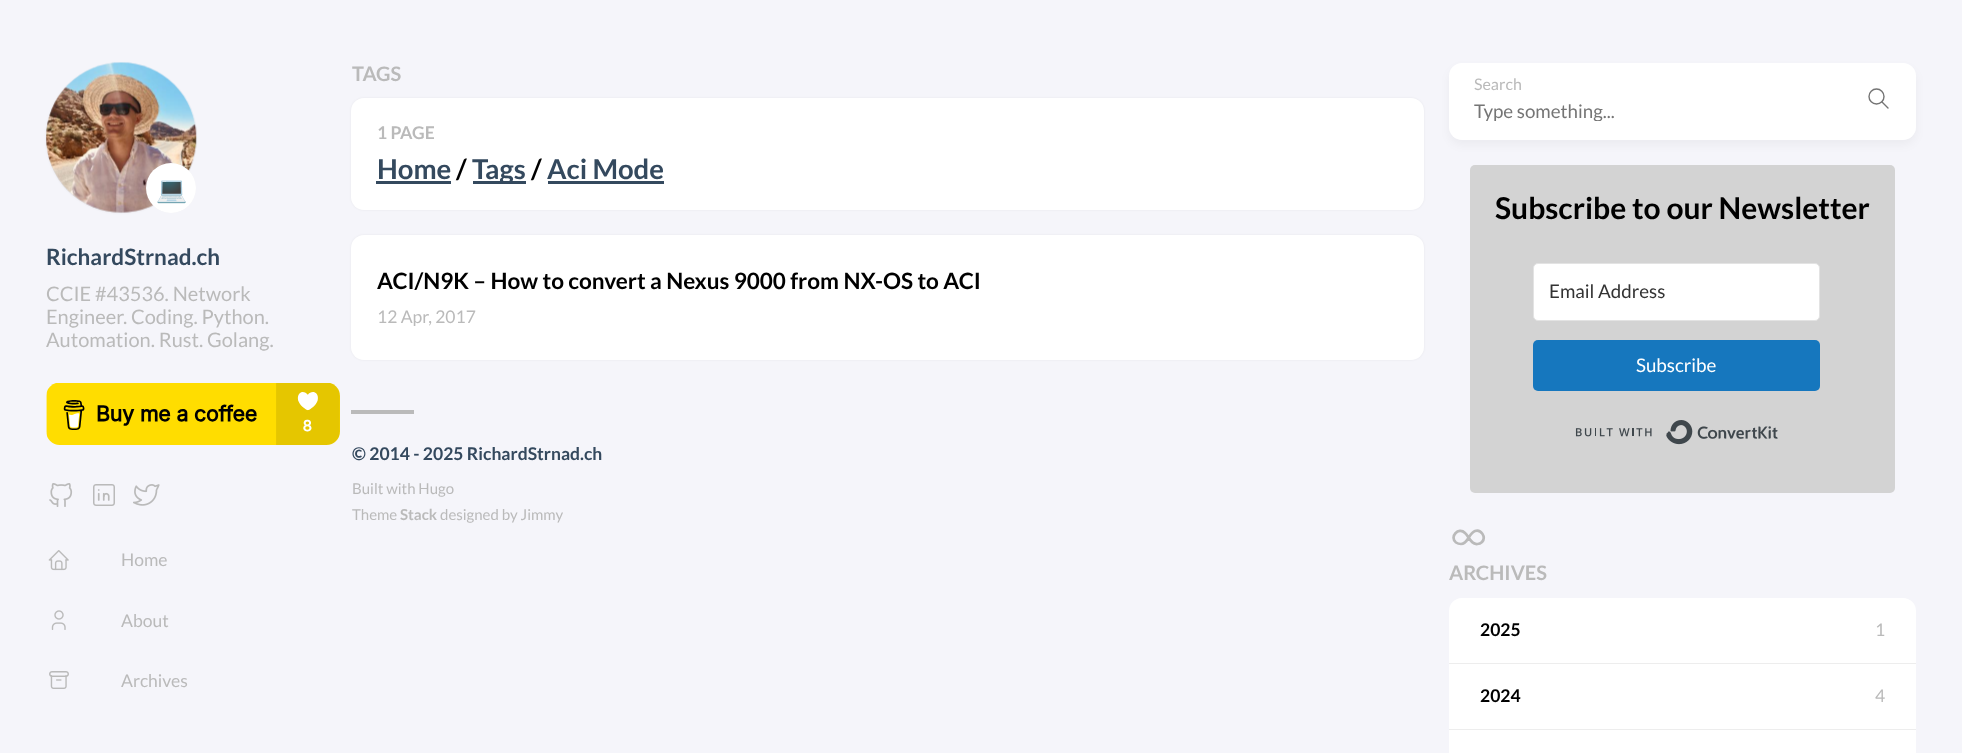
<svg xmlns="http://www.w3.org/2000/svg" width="1962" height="753">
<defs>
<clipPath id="clip1"><rect x="1474" y="99" width="417" height="22"/></clipPath>
</defs>
<rect width="100%" height="100%" fill="#f5f5fa"/>
<rect x="46" y="63" width="150" height="150" rx="75" fill="#0000000f" filter="blur(1px)"/>
<rect x="46" y="63" width="150" height="150" rx="75" fill="#0000000a" filter="blur(0.5px)"/>
<image x="46" y="62" width="151" height="151" href="media/1.png"/>
<rect x="146" y="163" width="50" height="50" rx="25" fill="#0000000a" filter="blur(0.5px)"/>
<circle cx="171" cy="188" r="25" fill="#fff"/>
<text x="156" y="198" style="font-family:Noto Color Emoji;font-size:25px;fill:#000">💻</text>
<text x="46" y="265" style="font-family:Lato;font-size:22.5px;font-weight:bold;fill:#34495e">RichardStrnad.ch</text>
<text x="46" y="301" style="font-family:Lato;font-size:20px;fill:#bababa">CCIE #43536. Network</text>
<text x="46" y="324" style="font-family:Lato;font-size:20px;fill:#bababa">Engineer. Coding. Python.</text>
<text x="46" y="347" style="font-family:Lato;font-size:20px;fill:#bababa">Automation. Rust. Golang.</text>
<image x="46" y="383" width="294" height="62" href="media/2.png"/>
<image x="49" y="483" width="24" height="24" href="media/3.png"/>
<image x="93" y="484" width="22" height="22" href="media/4.png"/>
<image x="133" y="484" width="27" height="22" href="media/5.png"/>
<image x="48" y="550" width="21" height="21" href="media/6.png"/>
<text x="121" y="566" style="font-family:Lato;font-size:17.5px;fill:#bababa">Home</text>
<image x="51" y="610" width="15" height="20" href="media/7.png"/>
<text x="121" y="627" style="font-family:Lato;font-size:17.5px;fill:#bababa">About</text>
<image x="49" y="671" width="20" height="18" href="media/8.png"/>
<text x="121" y="687" style="font-family:Lato;font-size:17.5px;fill:#bababa">Archives</text>
<text x="352" y="81" style="font-family:Lato;font-size:20px;font-weight:bold;fill:#bababa">TAGS</text>
<rect x="351" y="98" width="1073" height="112" rx="13" fill="#0000000f" filter="blur(1px)"/>
<rect x="351" y="98" width="1073" height="112" rx="13" fill="#fff"/>
<text x="377" y="139" style="font-family:Lato;font-size:17.5px;font-weight:bold;fill:#bababa">1 PAGE</text>
<text x="377" y="179" style="font-family:Lato;font-size:27.5px;font-weight:bold;fill:#34495e">Home</text>
<rect x="376" y="181" width="75" height="3" fill="#34495e"/>
<text x="456" y="179" style="font-family:Lato;font-size:27.5px;font-weight:bold;fill:#000">/</text>
<rect x="473" y="181" width="53" height="3" fill="#34495e"/>
<text x="472" y="179" style="font-family:Lato;font-size:27.5px;font-weight:bold;fill:#34495e">Tags</text>
<text x="531" y="179" style="font-family:Lato;font-size:27.5px;font-weight:bold;fill:#000">/</text>
<text x="547" y="179" style="font-family:Lato;font-size:27.5px;font-weight:bold;fill:#34495e">Aci Mode</text>
<rect x="548" y="181" width="116" height="3" fill="#34495e"/>
<rect x="351" y="235" width="1073" height="125" rx="13" fill="#0000000f" filter="blur(1px)"/>
<rect x="351" y="235" width="1073" height="125" rx="13" fill="#fff"/>
<text x="377" y="289" style="font-family:Lato;font-size:22.5px;font-weight:bold;fill:#000">ACI/N9K – How to convert a Nexus 9000 from NX-OS to ACI</text>
<text x="377" y="323" style="font-family:Lato;font-size:17.5px;fill:#bababa">12 Apr, 2017</text>
<rect x="351" y="410" width="63" height="4" fill="#bababa"/>
<text x="352" y="460" style="font-family:Lato;font-size:17.5px;font-weight:bold;fill:#34495e">© 2014 - 2025 RichardStrnad.ch</text>
<text x="352" y="494" style="font-family:Lato;font-size:15px;fill:#bababa">Built with Hugo</text>
<text x="352" y="520" style="font-family:Lato;font-size:15px;fill:#bababa">Theme</text>
<text x="400" y="520" style="font-family:Lato;font-size:15px;font-weight:bold;fill:#bababa">Stack</text>
<text x="440" y="520" style="font-family:Lato;font-size:15px;fill:#bababa">designed by Jimmy</text>
<rect x="1449" y="68" width="467" height="77" rx="13" fill="#0000000a" filter="blur(5px)"/>
<rect x="1449" y="63" width="467" height="77" rx="13" fill="#fff"/>
<text x="1474" y="90" style="font-family:Lato;font-size:16px;fill:#bababa">Search</text>
<circle cx="1876.5" cy="96.5" r="7.5" fill="none" stroke="#747474" stroke-width="1.4"/>
<path d="M1888 108l-6-6" fill="none" stroke="#747474" stroke-width="1.4" stroke-linecap="round" stroke-linejoin="round"/>
<g clip-path="url(#clip1)">
<text x="1474" y="118" style="font-family:Lato;font-size:18.75px;fill:#757575">Type something...</text>
</g>
<rect x="1470" y="165" width="425" height="328" rx="5" fill="#d3d3d3"/>
<text x="1495" y="219" style="font-family:Lato;font-size:30px;font-weight:bold;fill:#000">Subscribe to our Newsletter</text>
<rect x="1533.5" y="263.5" width="286" height="57" rx="4.5" fill="#fff" stroke="#e3e3e3"/>
<text x="1549" y="298" style="font-family:Lato;font-size:18.75px;fill:#333">Email Address</text>
<rect x="1533" y="340" width="287" height="51" rx="5" fill="#1677be"/>
<text x="1636" y="372" style="font-family:Lato;font-size:18.75px;fill:#fff">Subscribe</text>
<image x="1575" y="420" width="203" height="25" href="media/9.png"/>
<path d="M1465 533c-6.5-6.5-16 4-9 9.5c1.5 1 3 1.5 5 1.5c7 0 7.5-10.5 14-13c6-2 11.5 6 7 11c-1 1-2.5 2-4.5 2c-6.5 1-8.5-7.5-12.5-11" fill="none" stroke="#bababa" stroke-width="2.7" stroke-linecap="round" stroke-linejoin="round"/>
<text x="1449" y="580" style="font-family:Lato;font-size:20px;font-weight:bold;fill:#bababa">ARCHIVES</text>
<rect x="1449" y="598" width="467" height="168" rx="13" fill="#fff"/>
<rect x="1449" y="663" width="467" height="1" fill="#ededed"/>
<text x="1480" y="636" style="font-family:Lato;font-size:17.5px;font-weight:bold;fill:#000">2025</text>
<text x="1875" y="636" style="font-family:Lato;font-size:17.5px;fill:#bababa">1</text>
<rect x="1449" y="729" width="467" height="1" fill="#ededed"/>
<text x="1480" y="702" style="font-family:Lato;font-size:17.5px;font-weight:bold;fill:#000">2024</text>
<text x="1875" y="702" style="font-family:Lato;font-size:17.5px;fill:#bababa">4</text>
</svg>
